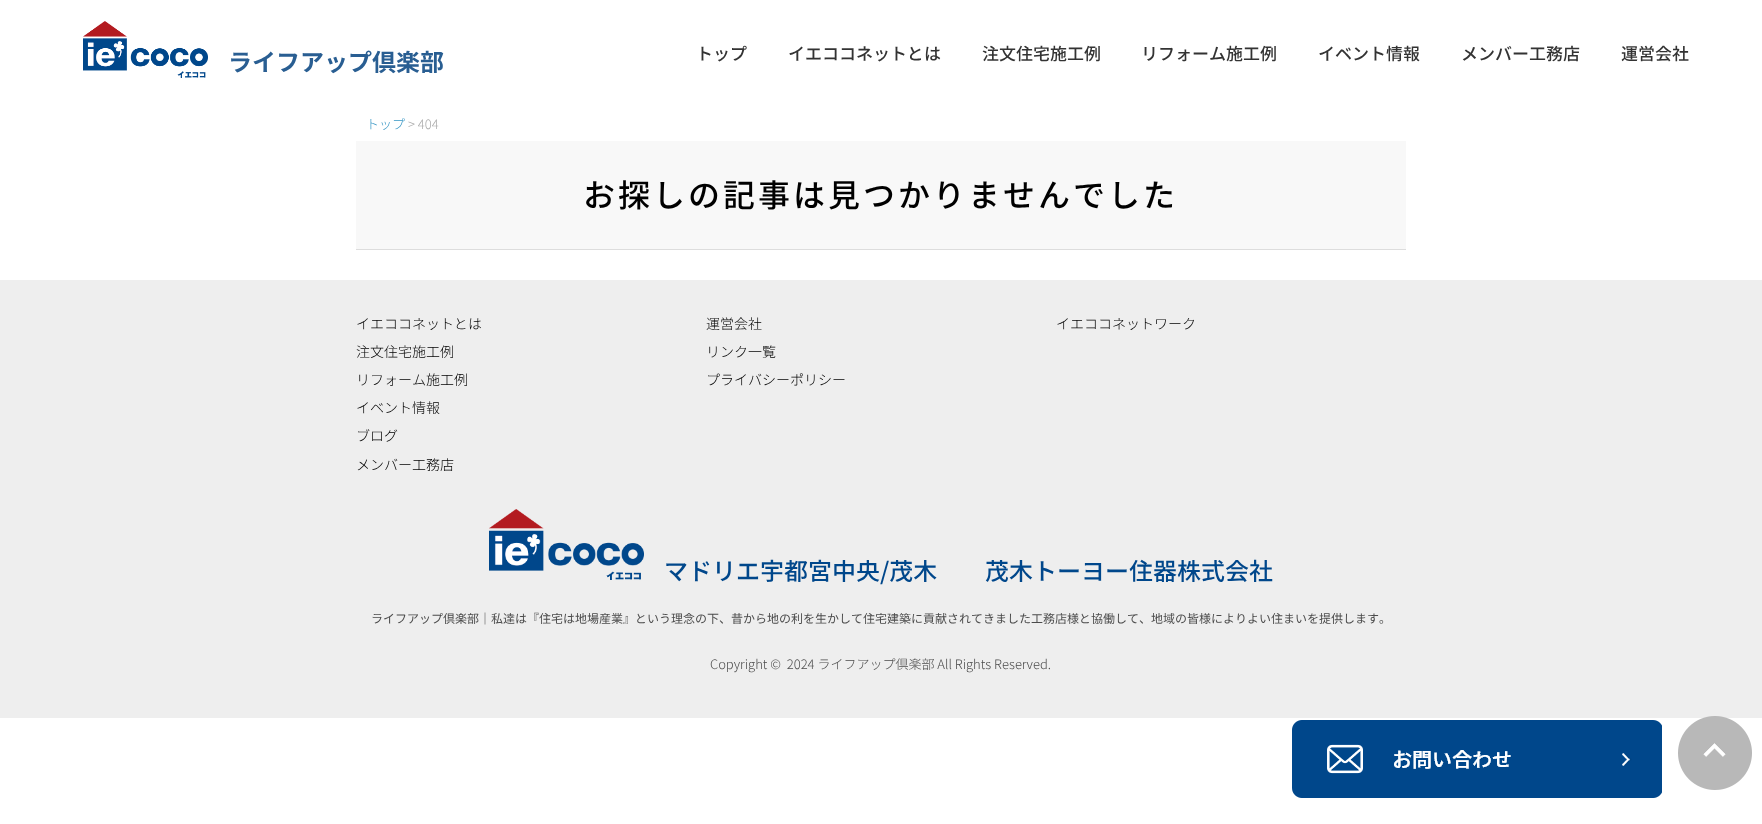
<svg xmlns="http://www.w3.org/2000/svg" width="1762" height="824">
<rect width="100%" height="100%" fill="#fff"/>
<image x="83" y="21" width="125" height="57" href="media/1.png"/>
<text x="228" y="71" style="font-family:Noto Sans CJK JP;font-size:24px;font-weight:bold;fill:#295e92">ライフアップ倶楽部</text>
<text x="696" y="60" style="font-family:Noto Sans CJK JP;font-size:17px;font-weight:500;fill:#333">トップ</text>
<text x="788" y="60" style="font-family:Noto Sans CJK JP;font-size:17px;font-weight:500;fill:#333">イエココネットとは</text>
<text x="982" y="60" style="font-family:Noto Sans CJK JP;font-size:17px;font-weight:500;fill:#333">注文住宅施工例</text>
<text x="1141" y="60" style="font-family:Noto Sans CJK JP;font-size:17px;font-weight:500;fill:#333">リフォーム施工例</text>
<text x="1318" y="60" style="font-family:Noto Sans CJK JP;font-size:17px;font-weight:500;fill:#333">イベント情報</text>
<text x="1461" y="60" style="font-family:Noto Sans CJK JP;font-size:17px;font-weight:500;fill:#333">メンバー工務店</text>
<text x="1621" y="60" style="font-family:Noto Sans CJK JP;font-size:17px;font-weight:500;fill:#333">運営会社</text>
<text x="366" y="129" style="font-family:Noto Sans CJK JP;font-size:13px;font-weight:300;fill:#3796c4">トップ</text>
<text x="408" y="129" style="font-family:Noto Sans CJK JP;font-size:13px;font-weight:300;fill:#aaa">&gt; 404</text>
<rect x="356" y="141" width="1050" height="108" fill="#f8f8f8"/>
<rect x="356" y="249" width="1050" height="1" fill="#ddd"/>
<text x="583" y="207" style="font-family:Noto Sans CJK JP;font-size:32px;font-weight:500;letter-spacing:3px;fill:#000">お探しの記事は見つかりませんでした</text>
<rect y="280" width="1762" height="438" fill="#eee"/>
<text x="356" y="329" style="font-family:Noto Sans CJK JP;font-size:14px;font-weight:300;fill:#000">イエココネットとは</text>
<text x="356" y="357" style="font-family:Noto Sans CJK JP;font-size:14px;font-weight:300;fill:#000">注文住宅施工例</text>
<text x="356" y="385" style="font-family:Noto Sans CJK JP;font-size:14px;font-weight:300;fill:#000">リフォーム施工例</text>
<text x="356" y="413" style="font-family:Noto Sans CJK JP;font-size:14px;font-weight:300;fill:#000">イベント情報</text>
<text x="356" y="441" style="font-family:Noto Sans CJK JP;font-size:14px;font-weight:300;fill:#000">ブログ</text>
<text x="356" y="470" style="font-family:Noto Sans CJK JP;font-size:14px;font-weight:300;fill:#000">メンバー工務店</text>
<text x="706" y="329" style="font-family:Noto Sans CJK JP;font-size:14px;font-weight:300;fill:#000">運営会社</text>
<text x="706" y="357" style="font-family:Noto Sans CJK JP;font-size:14px;font-weight:300;fill:#000">リンク一覧</text>
<text x="706" y="385" style="font-family:Noto Sans CJK JP;font-size:14px;font-weight:300;fill:#000">プライバシーポリシー</text>
<text x="1056" y="329" style="font-family:Noto Sans CJK JP;font-size:14px;font-weight:300;fill:#000">イエココネットワーク</text>
<image x="489" y="509" width="155" height="71" href="media/2.png"/>
<text x="664" y="580" style="font-family:Noto Sans CJK JP;font-size:24px;font-weight:500;fill:#00478b">マドリエ宇都宮中央/茂木</text>
<text x="985" y="580" style="font-family:Noto Sans CJK JP;font-size:24px;font-weight:500;fill:#00478b">茂木トーヨー住器株式会社</text>
<text x="371" y="623" style="font-family:Noto Sans CJK JP;font-size:12px;fill:#4b4b4b">ライフアップ倶楽部｜私達は『住宅は地場産業』という理念の下、昔から地の利を生かして住宅建築に貢献されてきました工務店様と協働して、地域の皆様によりよい住まいを提供します。</text>
<text x="710" y="669" style="font-family:Noto Sans CJK JP;font-size:13px;font-weight:300;fill:#4b4b4b" xml:space="preserve">Copyright ©  2024 ライフアップ倶楽部 All Rights Reserved.</text>
<image x="1292" y="720" width="370" height="78" href="media/3.png"/>
<image x="1678" y="716" width="74" height="74" href="media/4.png"/>
</svg>
